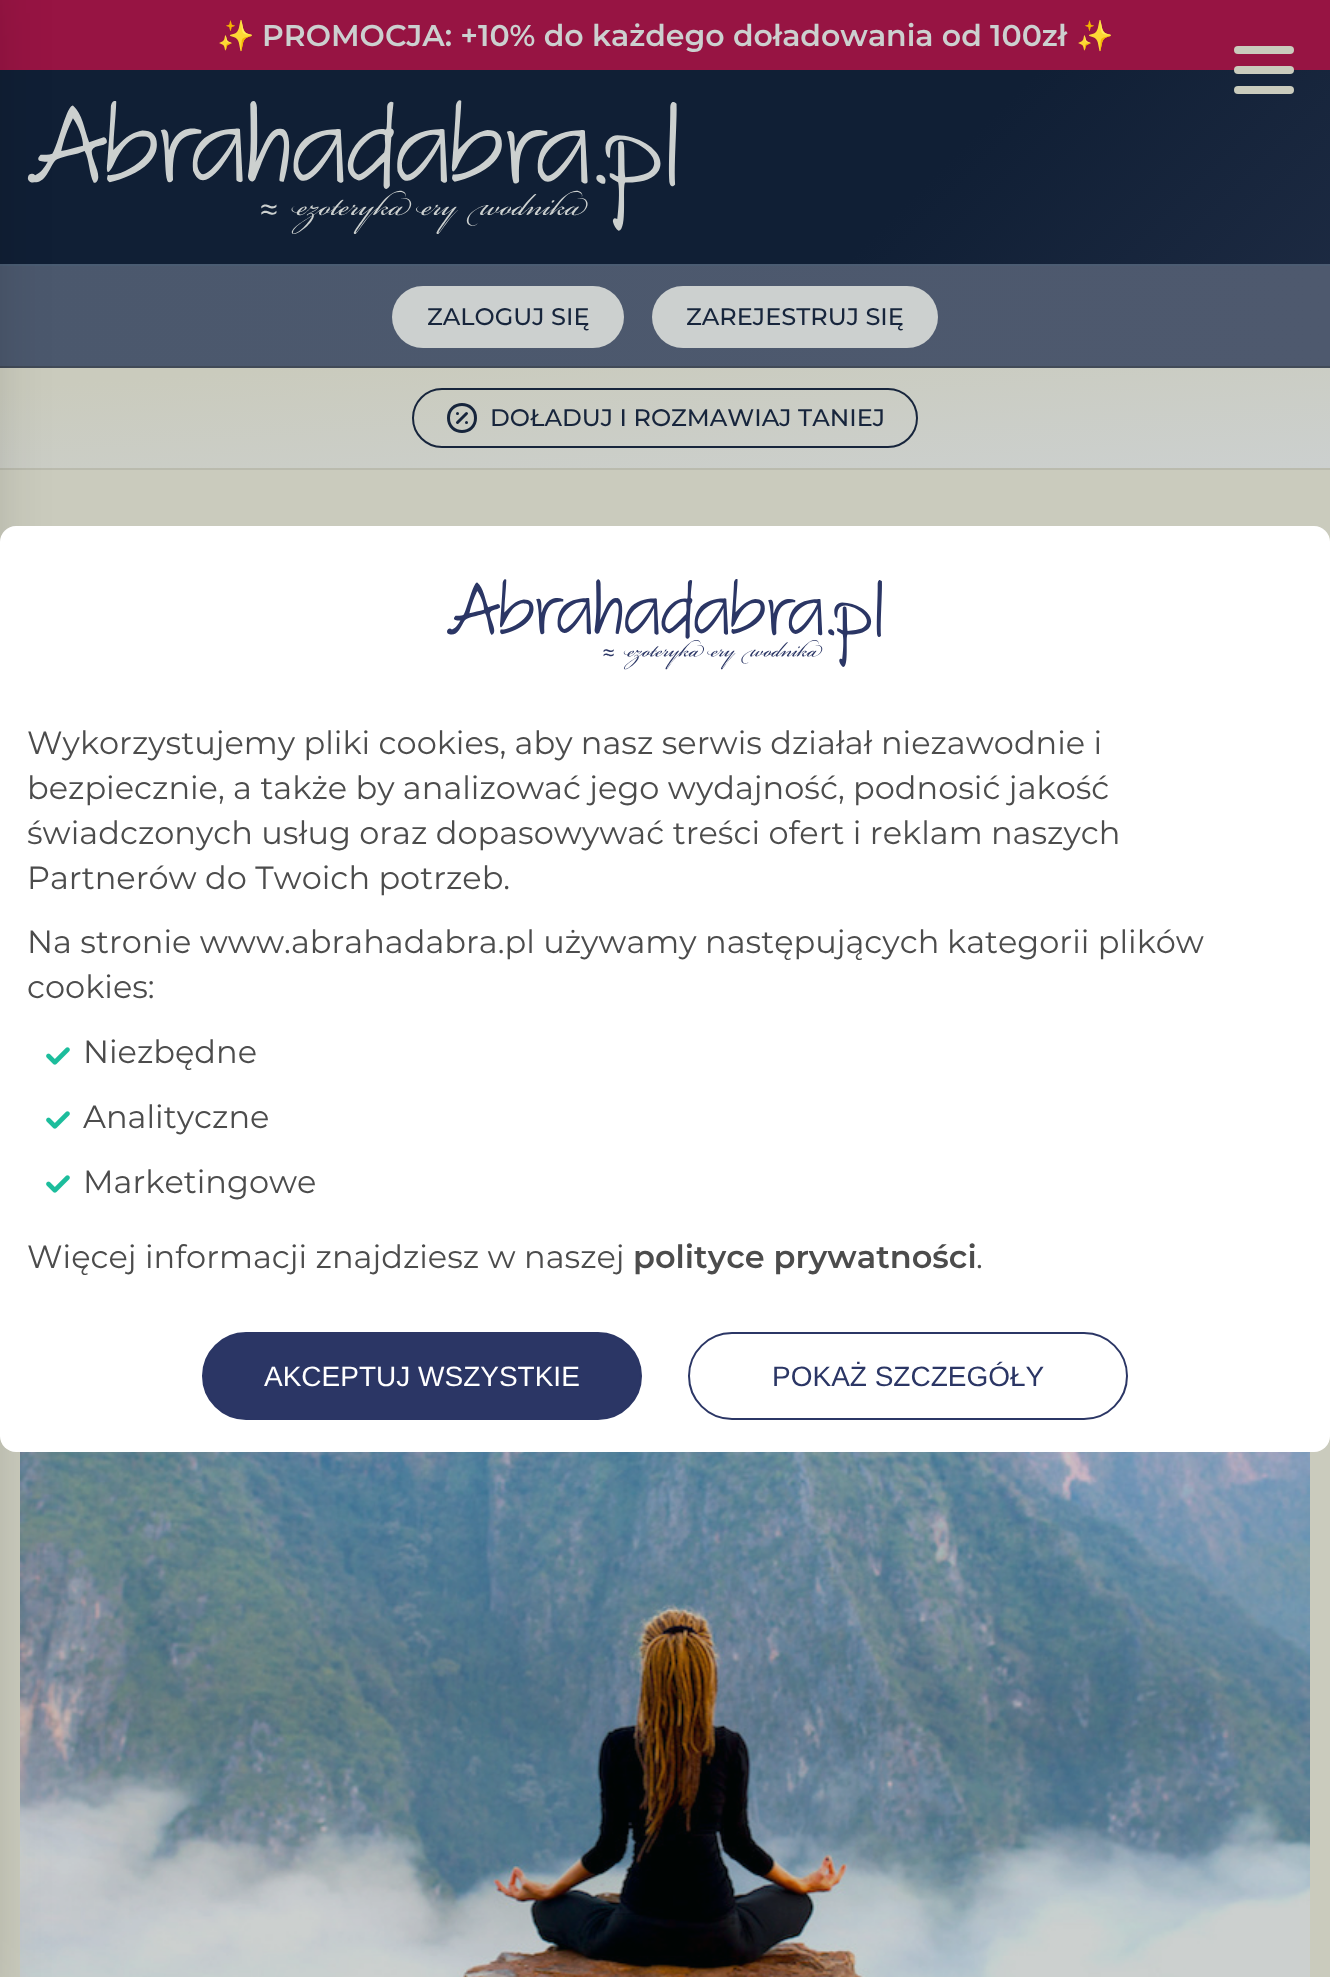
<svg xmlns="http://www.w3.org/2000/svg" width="1330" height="1977">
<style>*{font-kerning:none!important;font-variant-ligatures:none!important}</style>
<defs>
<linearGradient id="g1" gradientUnits="userSpaceOnUse" x1="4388" y1="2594" x2="932" y2="-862"><stop offset="0.03" stop-color="#101f35"/><stop offset="0.1" stop-color="#617889"/><stop offset="0.2" stop-color="#3e5374"/><stop offset="0.45" stop-color="#101f35"/><stop offset="0.6" stop-color="#3a4460"/><stop offset="0.85" stop-color="#101f35"/><stop offset="1" stop-color="#101f35"/></linearGradient>
<linearGradient id="g2" gradientUnits="userSpaceOnUse" x1="0" y1="317" x2="1330" y2="317"><stop offset="0" stop-color="#4b586d"/><stop offset="1" stop-color="#4e596e"/></linearGradient>
<linearGradient id="g3" gradientUnits="userSpaceOnUse" x1="0" y1="317" x2="1330" y2="317"><stop offset="0" stop-color="#4a5c72"/><stop offset="1" stop-color="#4c5c72"/></linearGradient>
<linearGradient id="g4" gradientUnits="userSpaceOnUse" x1="672" y1="517" x2="658" y2="319"><stop offset="0" stop-color="#ccd0cf"/><stop offset="0.89" stop-color="#cacbbd"/></linearGradient>
</defs>
<rect width="100%" height="100%" fill="#cacbbd"/>
<rect width="1330" height="70" fill="#971443"/>
<rect y="70" width="1330" height="194" fill="url(#g1)"/>
<image x="27" y="100" width="650" height="134" href="media/1.png"/>
<rect x="-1" y="367" width="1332" height="102" fill="none" stroke="#00040314" stroke-width="2"/>
<rect y="266" width="1330" height="102" fill="url(#g2)"/>
<rect y="264" width="1330" height="2" fill="url(#g3)"/>
<rect y="366" width="1330" height="2" fill="#33373666"/>
<rect y="368" width="1330" height="100" fill="url(#g4)"/>
<image x="20" y="1452" width="1290" height="525" href="media/4.png"/>
<rect x="-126" y="-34" width="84" height="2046" fill="#00040366" filter="blur(42px)"/>
<text x="217" y="46" style="font-family:Noto Color Emoji;font-size:30px;font-weight:bold;fill:#ccd0cf">✨</text>
<text x="262" y="46" style="font-family:Montserrat;font-size:30px;font-weight:600;fill:#ccd0cf">PROMOCJA: +10% do każdego doładowania od 100zł</text>
<text x="1076" y="46" style="font-family:Noto Color Emoji;font-size:30px;font-weight:bold;fill:#ccd0cf">✨</text>
<rect x="1234" y="46" width="60" height="8" rx="4" fill="#cacbbd"/>
<rect x="1234" y="66" width="60" height="8" rx="4" fill="#cacbbd"/>
<rect x="1234" y="86" width="60" height="8" rx="4" fill="#cacbbd"/>
<rect x="392" y="286" width="232" height="62" rx="31" fill="#ccd0cf"/>
<text x="427" y="325" style="font-family:Montserrat;font-size:24px;font-weight:500;fill:#17253c">ZALOGUJ SIĘ</text>
<rect x="652" y="286" width="286" height="62" rx="31" fill="#ccd0cf"/>
<text x="686" y="325" style="font-family:Montserrat;font-size:24px;font-weight:500;fill:#17253c">ZAREJESTRUJ SIĘ</text>
<rect x="413" y="389" width="504" height="58" rx="29" fill="none" stroke="#17253c" stroke-width="2"/>
<path d="M448.5 418c0 18 27 18 27 0c0-18-27-18-27 0m9 4.5l9-9m-9 0h0m9 9h0" fill="none" stroke="#17253c" stroke-width="3" stroke-linecap="round" stroke-linejoin="round"/>
<text x="490" y="426" style="font-family:Montserrat;font-size:24px;font-weight:500;fill:#17253c">DOŁADUJ I ROZMAWIAJ TANIEJ</text>
<rect y="526" width="1330" height="926" rx="16" fill="#fff"/>
<image x="447" y="579" width="435" height="91" href="media/2.png"/>
<text x="27" y="754" style="font-family:Montserrat;font-size:32px;fill:#4c4c4c">Wykorzystujemy pliki cookies, aby nasz serwis działał niezawodnie i</text>
<text x="27" y="799" style="font-family:Montserrat;font-size:32px;fill:#4c4c4c">bezpiecznie, a także by analizować jego wydajność, podnosić jakość</text>
<text x="27" y="844" style="font-family:Montserrat;font-size:32px;fill:#4c4c4c">świadczonych usług oraz dopasowywać treści ofert i reklam naszych</text>
<text x="27" y="889" style="font-family:Montserrat;font-size:32px;fill:#4c4c4c">Partnerów do Twoich potrzeb.</text>
<text x="27" y="953" style="font-family:Montserrat;font-size:32px;fill:#4c4c4c">Na stronie www.abrahadabra.pl używamy następujących</text>
<text x="947" y="953" style="font-family:Montserrat;font-size:32px;fill:#4c4c4c">kategorii plików</text>
<text x="27" y="998" style="font-family:Montserrat;font-size:32px;fill:#4c4c4c">cookies:</text>
<image x="46" y="1047" width="24" height="18" href="media/3.png"/>
<text x="83" y="1063" style="font-family:Montserrat;font-size:32px;fill:#4c4c4c">Niezbędne</text>
<image x="46" y="1111" width="24" height="18" href="media/3.png"/>
<text x="83" y="1128" style="font-family:Montserrat;font-size:32px;fill:#4c4c4c">Analityczne</text>
<image x="46" y="1175" width="24" height="18" href="media/3.png"/>
<text x="83" y="1193" style="font-family:Montserrat;font-size:32px;fill:#4c4c4c">Marketingowe</text>
<text x="27" y="1268" style="font-family:Montserrat;font-size:32px;fill:#4c4c4c">Więcej informacji znajdziesz w naszej</text>
<text x="633" y="1268" style="font-family:Montserrat;font-size:32px;font-weight:600;fill:#4c4c4c">polityce prywatności</text>
<text x="976" y="1268" style="font-family:Montserrat;font-size:32px;fill:#4c4c4c">.</text>
<rect x="203" y="1333" width="438" height="86" rx="43" fill="#2b3665" stroke="#2b3665" stroke-width="2"/>
<text x="264" y="1386" style="font-family:Liberation Sans;font-size:28px;fill:#fff">AKCEPTUJ WSZYSTKIE</text>
<rect x="689" y="1333" width="438" height="86" rx="43" fill="none" stroke="#2b3665" stroke-width="2"/>
<text x="772" y="1386" style="font-family:Liberation Sans;font-size:28px;fill:#2b3665">POKAŻ SZCZEGÓŁY</text>
</svg>
